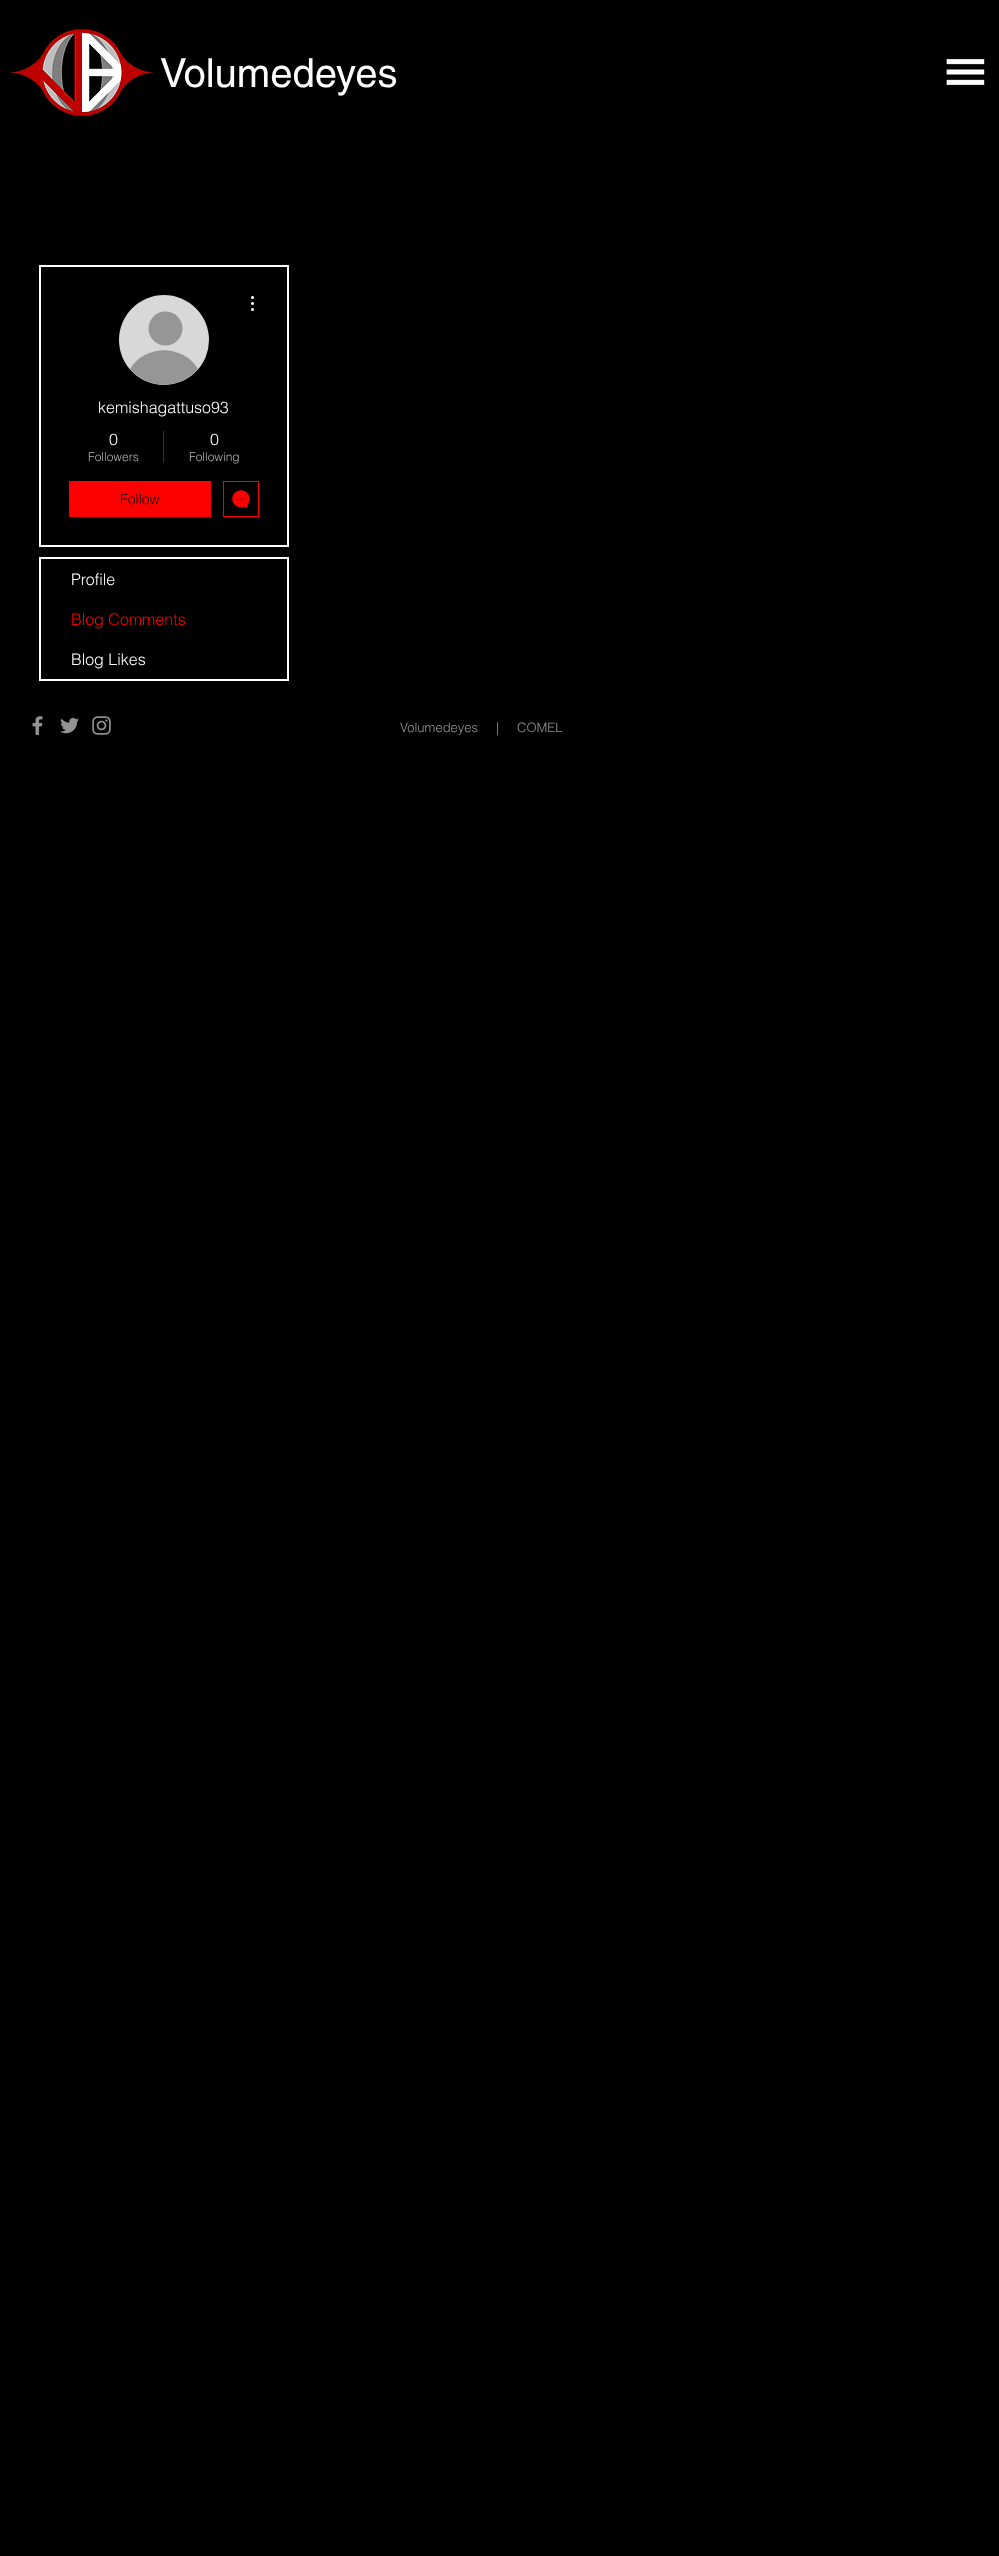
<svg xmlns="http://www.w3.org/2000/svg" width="999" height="2556">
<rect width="100%" height="100%" fill="#000"/>
<image x="10" y="28" width="144" height="89" href="media/1.png"/>
<text x="160" y="87" style="font-family:helvetica;font-size:40px;fill:#fff">Volumedeyes</text>
<image x="946" y="58" width="39" height="28" href="media/2.png"/>
<rect x="40" y="266" width="248" height="280" fill="none" stroke="#fff" stroke-width="2"/>
<circle cx="164" cy="340" r="45" fill="#d8d8d8"/>
<circle cx="165.5" cy="328.5" r="17" fill="#969696"/>
<path d="M198 369c-18 21-50 21-68 0c15-25 53-25 68 0z" fill="#969696"/>
<image x="251" y="296" width="3" height="15" href="media/3.png"/>
<text x="98" y="413" style="font-family:helvetica;font-size:16px;font-weight:300;fill:#fff">kemishagattuso93</text>
<text x="109" y="445" style="font-family:helvetica;font-size:16px;font-weight:300;fill:#fff">0</text>
<text x="88" y="461" style="font-family:helvetica;font-size:12px;font-weight:300;fill:#b3b3b3">Followers</text>
<rect x="163" y="431" width="1" height="32" fill="#333"/>
<text x="210" y="445" style="font-family:helvetica;font-size:16px;font-weight:300;fill:#fff">0</text>
<text x="189" y="461" style="font-family:helvetica;font-size:12px;font-weight:300;fill:#b3b3b3">Following</text>
<rect x="69" y="481" width="142" height="36" fill="#fc0000"/>
<text x="120" y="504" style="font-family:helvetica;font-size:14px;font-weight:300;fill:#000">Follow</text>
<rect x="223.5" y="481.5" width="35" height="35" fill="none" stroke="#fc0000"/>
<image x="232" y="490" width="18" height="18" href="media/4.png"/>
<rect x="40" y="558" width="248" height="122" fill="none" stroke="#fff" stroke-width="2"/>
<text x="71" y="585" style="font-family:helvetica;font-size:16px;font-weight:300;fill:#fff">Profile</text>
<text x="71" y="625" style="font-family:helvetica;font-size:16px;font-weight:300;fill:#fc0000">Blog Comments</text>
<text x="71" y="665" style="font-family:helvetica;font-size:16px;font-weight:300;fill:#fff">Blog Likes</text>
<image x="32" y="716" width="11" height="20" href="media/5.png"/>
<image x="60" y="717" width="19" height="17" href="media/6.png"/>
<image x="92" y="716" width="19" height="19" href="media/7.png"/>
<text x="400" y="732" style="font-family:helvetica;font-size:13px;font-weight:300;fill:#999696">Volumedeyes</text>
<text x="496" y="732" style="font-family:helvetica;font-size:13px;font-weight:300;fill:#999696">|</text>
<text x="517" y="732" style="font-family:helvetica;font-size:13px;font-weight:300;fill:#999696">COMEL</text>
</svg>
